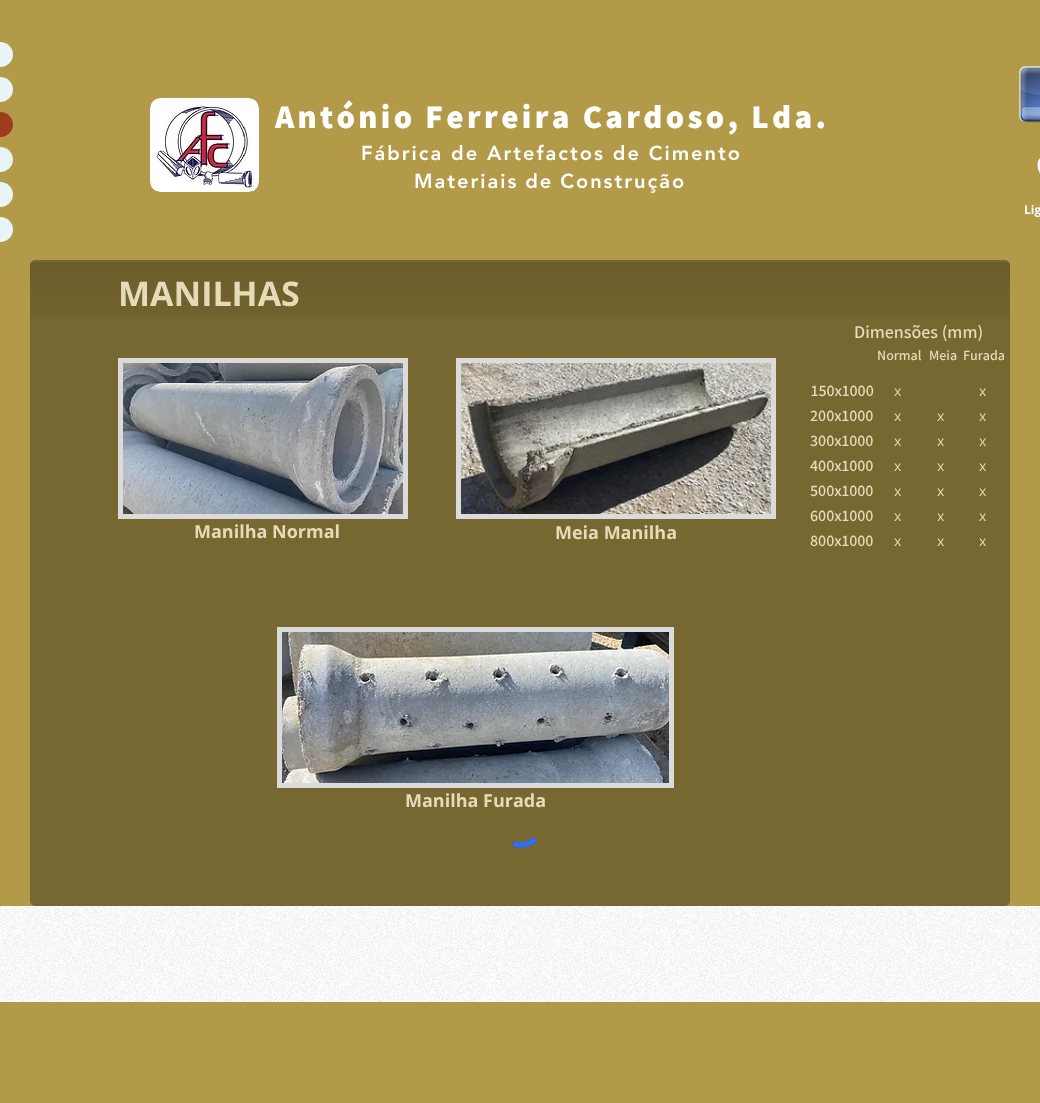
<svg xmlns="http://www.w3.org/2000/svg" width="1040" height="1103">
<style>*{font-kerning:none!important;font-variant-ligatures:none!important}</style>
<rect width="100%" height="100%" fill="#b29a48"/>
<rect x="-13" y="42" width="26" height="25" rx="12.5" fill="#e9f4f6"/>
<rect x="-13" y="77" width="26" height="25" rx="12.5" fill="#e9f4f6"/>
<rect x="-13" y="112" width="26" height="25" rx="12.5" fill="#9e3b1b"/>
<rect x="-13" y="147" width="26" height="25" rx="12.5" fill="#e9f4f6"/>
<rect x="-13" y="182" width="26" height="25" rx="12.5" fill="#e9f4f6"/>
<rect x="-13" y="217" width="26" height="25" rx="12.5" fill="#e9f4f6"/>
<image x="150" y="98" width="109" height="94" href="media/1.png"/>
<text x="275" y="128" style="font-family:Assistant;font-size:33px;font-weight:800;letter-spacing:3.3px;fill:#fff">António Ferreira Cardoso, Lda.</text>
<text x="361" y="160" style="font-family:'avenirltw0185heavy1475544';font-size:20px;font-weight:900;letter-spacing:2px;fill:#fff">Fábrica de Artefactos de Cimento</text>
<text x="414" y="188" word-spacing="-1" style="font-family:'avenirltw0185heavy1475544';font-size:20px;font-weight:900;letter-spacing:2px;fill:#fff">Materiais de Construção</text>
<image x="1019" y="66" width="21" height="57" href="media/2.png"/>
<image x="1037" y="158" width="3" height="16" href="media/3.png"/>
<text x="1024" y="214" style="font-family:Open Sans;font-size:12px;font-weight:bold;fill:#fff">Lig</text>
<rect x="30" y="260" width="980" height="646" rx="5" fill="#776730"/>
<image x="30" y="262" width="980" height="57" href="media/4.png"/>
<text x="118" y="306" style="font-family:Open Sans;font-size:34px;font-weight:bold;fill:#e5dbb8">MANILHAS</text>
<rect x="118" y="358" width="290" height="161" fill="#dadbda"/>
<image x="123" y="363" width="280" height="151" href="media/5.png"/>
<text x="194" y="538" style="font-family:Open Sans;font-size:18px;font-weight:bold;fill:#e5dbb8">Manilha Normal</text>
<rect x="456" y="358" width="320" height="161" fill="#dadbda"/>
<image x="461" y="363" width="310" height="151" href="media/6.png"/>
<text x="555" y="539" style="font-family:Open Sans;font-size:18px;font-weight:bold;fill:#e5dbb8">Meia Manilha</text>
<text x="854" y="338" style="font-family:Assistant;font-size:18px;font-weight:600;fill:#e5dbb8">Dimensões (mm)</text>
<text x="877" y="360" style="font-family:Assistant;font-size:14px;font-weight:600;fill:#e5dbb8">Normal</text>
<text x="929" y="360" style="font-family:Assistant;font-size:14px;font-weight:600;fill:#e5dbb8">Meia</text>
<text x="963" y="360" style="font-family:Assistant;font-size:14px;font-weight:600;fill:#e5dbb8">Furada</text>
<text x="811" y="396" style="font-family:Assistant;font-size:16px;font-weight:600;fill:#e5dbb8">150x1000</text>
<text x="810" y="421" style="font-family:Assistant;font-size:16px;font-weight:600;fill:#e5dbb8">200x1000</text>
<text x="810" y="446" style="font-family:Assistant;font-size:16px;font-weight:600;fill:#e5dbb8">300x1000</text>
<text x="810" y="471" style="font-family:Assistant;font-size:16px;font-weight:600;fill:#e5dbb8">400x1000</text>
<text x="810" y="496" style="font-family:Assistant;font-size:16px;font-weight:600;fill:#e5dbb8">500x1000</text>
<text x="810" y="521" style="font-family:Assistant;font-size:16px;font-weight:600;fill:#e5dbb8">600x1000</text>
<text x="810" y="546" style="font-family:Assistant;font-size:16px;font-weight:600;fill:#e5dbb8">800x1000</text>
<text x="894" y="396" style="font-family:Open Sans;font-size:14px;fill:#e5dbb8">x</text>
<text x="894" y="421" style="font-family:Open Sans;font-size:14px;fill:#e5dbb8">x</text>
<text x="894" y="446" style="font-family:Open Sans;font-size:14px;fill:#e5dbb8">x</text>
<text x="894" y="471" style="font-family:Open Sans;font-size:14px;fill:#e5dbb8">x</text>
<text x="894" y="496" style="font-family:Open Sans;font-size:14px;fill:#e5dbb8">x</text>
<text x="894" y="521" style="font-family:Open Sans;font-size:14px;fill:#e5dbb8">x</text>
<text x="894" y="546" style="font-family:Open Sans;font-size:14px;fill:#e5dbb8">x</text>
<text x="937" y="421" style="font-family:Open Sans;font-size:14px;fill:#e5dbb8">x</text>
<text x="937" y="446" style="font-family:Open Sans;font-size:14px;fill:#e5dbb8">x</text>
<text x="937" y="471" style="font-family:Open Sans;font-size:14px;fill:#e5dbb8">x</text>
<text x="937" y="496" style="font-family:Open Sans;font-size:14px;fill:#e5dbb8">x</text>
<text x="937" y="521" style="font-family:Open Sans;font-size:14px;fill:#e5dbb8">x</text>
<text x="937" y="546" style="font-family:Open Sans;font-size:14px;fill:#e5dbb8">x</text>
<text x="979" y="396" style="font-family:Open Sans;font-size:14px;fill:#e5dbb8">x</text>
<text x="979" y="421" style="font-family:Open Sans;font-size:14px;fill:#e5dbb8">x</text>
<text x="979" y="446" style="font-family:Open Sans;font-size:14px;fill:#e5dbb8">x</text>
<text x="979" y="471" style="font-family:Open Sans;font-size:14px;fill:#e5dbb8">x</text>
<text x="979" y="496" style="font-family:Open Sans;font-size:14px;fill:#e5dbb8">x</text>
<text x="979" y="521" style="font-family:Open Sans;font-size:14px;fill:#e5dbb8">x</text>
<text x="979" y="546" style="font-family:Open Sans;font-size:14px;fill:#e5dbb8">x</text>
<rect x="277" y="627" width="397" height="161" fill="#dadbda"/>
<image x="282" y="632" width="387" height="151" href="media/7.png"/>
<text x="405" y="807" style="font-family:Open Sans;font-size:18px;font-weight:bold;fill:#e5dbb8">Manilha Furada</text>
<image x="512" y="837" width="26" height="11" href="media/8.png"/>
<rect y="906" width="1040" height="96" fill="#fff"/>
<image x="0" y="906" width="1040" height="96" href="media/9.png"/>
</svg>
